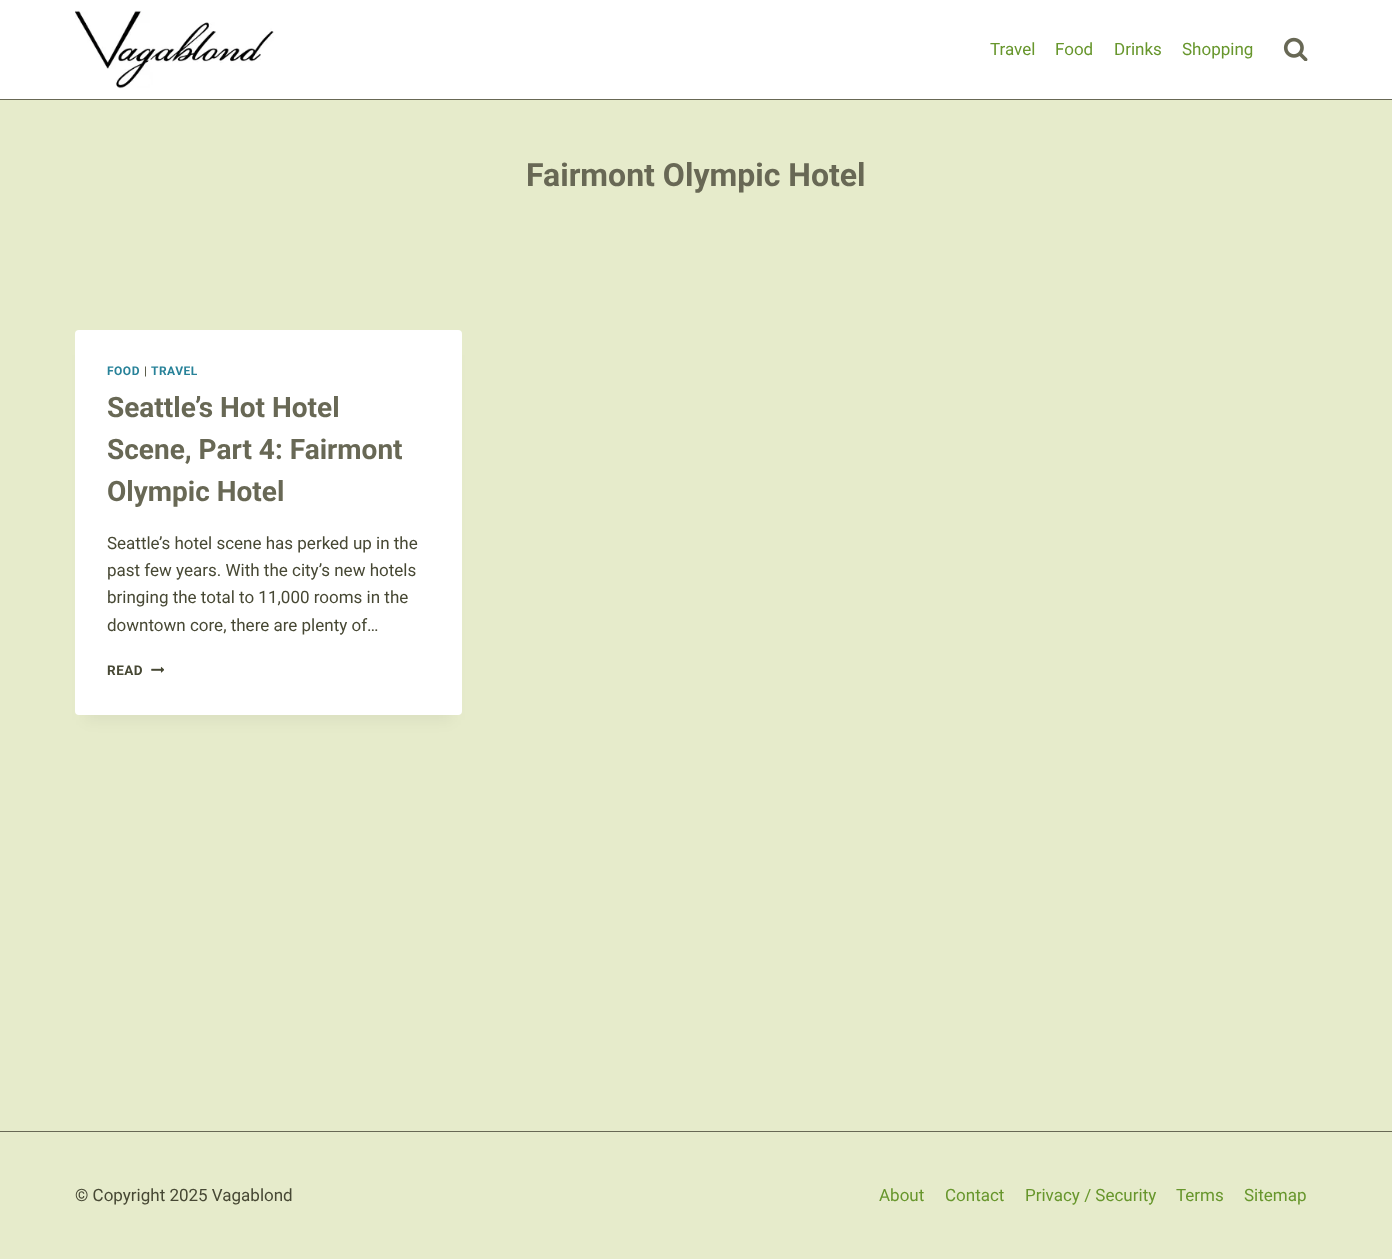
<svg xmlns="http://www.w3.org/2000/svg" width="1392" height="1259">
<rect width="100%" height="100%" fill="#e6ebcb"/>
<rect width="1392" height="99" fill="#fff"/>
<rect y="99" width="1392" height="1" fill="#686855"/>
<image x="75" y="10" width="199" height="79" href="media/1.png"/>
<text x="990" y="55" style="font-family:Roboto;font-size:17px;fill:#67962c">Travel</text>
<text x="1055" y="55" style="font-family:Roboto;font-size:17px;fill:#67962c">Food</text>
<text x="1114" y="55" style="font-family:Roboto;font-size:17px;fill:#67962c">Drinks</text>
<text x="1182" y="55" style="font-family:Roboto;font-size:17px;fill:#67962c">Shopping</text>
<image x="1283" y="37" width="25" height="24" href="media/2.png"/>
<text x="526" y="186" style="font-family:Roboto;font-size:32px;font-weight:bold;fill:#686855">Fairmont Olympic Hotel</text>
<rect x="85" y="355" width="367" height="365" fill="#0000000d" filter="blur(7.5px)"/>
<rect x="75" y="330" width="387" height="385" rx="4" fill="#fff"/>
<text x="107" y="375" style="font-family:Roboto;font-size:12px;font-weight:bold;letter-spacing:0.5px;fill:#288299">FOOD</text>
<text x="144" y="375" style="font-family:Roboto;font-size:12px;letter-spacing:0.5px;fill:#474834">|</text>
<text x="151" y="375" style="font-family:Roboto;font-size:12px;font-weight:bold;letter-spacing:0.5px;fill:#288299">TRAVEL</text>
<text x="107" y="417" style="font-family:Roboto;font-size:28px;font-weight:bold;fill:#686855">Seattle’s Hot Hotel</text>
<text x="107" y="459" style="font-family:Roboto;font-size:28px;font-weight:bold;fill:#686855">Scene, Part 4: Fairmont</text>
<text x="107" y="501" style="font-family:Roboto;font-size:28px;font-weight:bold;fill:#686855">Olympic Hotel</text>
<text x="107" y="549" style="font-family:Roboto;font-size:17px;fill:#474834">Seattle’s hotel scene has perked up in the</text>
<text x="107" y="576" style="font-family:Roboto;font-size:17px;fill:#474834">past few years. With the city’s new hotels</text>
<text x="107" y="603" style="font-family:Roboto;font-size:17px;fill:#474834">bringing the total to 11,000 rooms in the</text>
<text x="107" y="631" style="font-family:Roboto;font-size:17px;fill:#474834">downtown core, there are plenty of…</text>
<text x="107" y="675" style="font-family:Roboto;font-size:13.5px;font-weight:bold;letter-spacing:0.5px;fill:#474834">READ</text>
<image x="151" y="666" width="13" height="7" href="media/3.png"/>
<rect y="1131" width="1392" height="1" fill="#686855"/>
<text x="75" y="1201" style="font-family:Roboto;font-size:17px;fill:#474834">© Copyright 2025 Vagablond</text>
<text x="879" y="1201" style="font-family:Roboto;font-size:17px;fill:#67962c">About</text>
<text x="945" y="1201" style="font-family:Roboto;font-size:17px;fill:#67962c">Contact</text>
<text x="1025" y="1201" style="font-family:Roboto;font-size:17px;fill:#67962c">Privacy / Security</text>
<text x="1176" y="1201" style="font-family:Roboto;font-size:17px;fill:#67962c">Terms</text>
<text x="1244" y="1201" style="font-family:Roboto;font-size:17px;fill:#67962c">Sitemap</text>
</svg>
